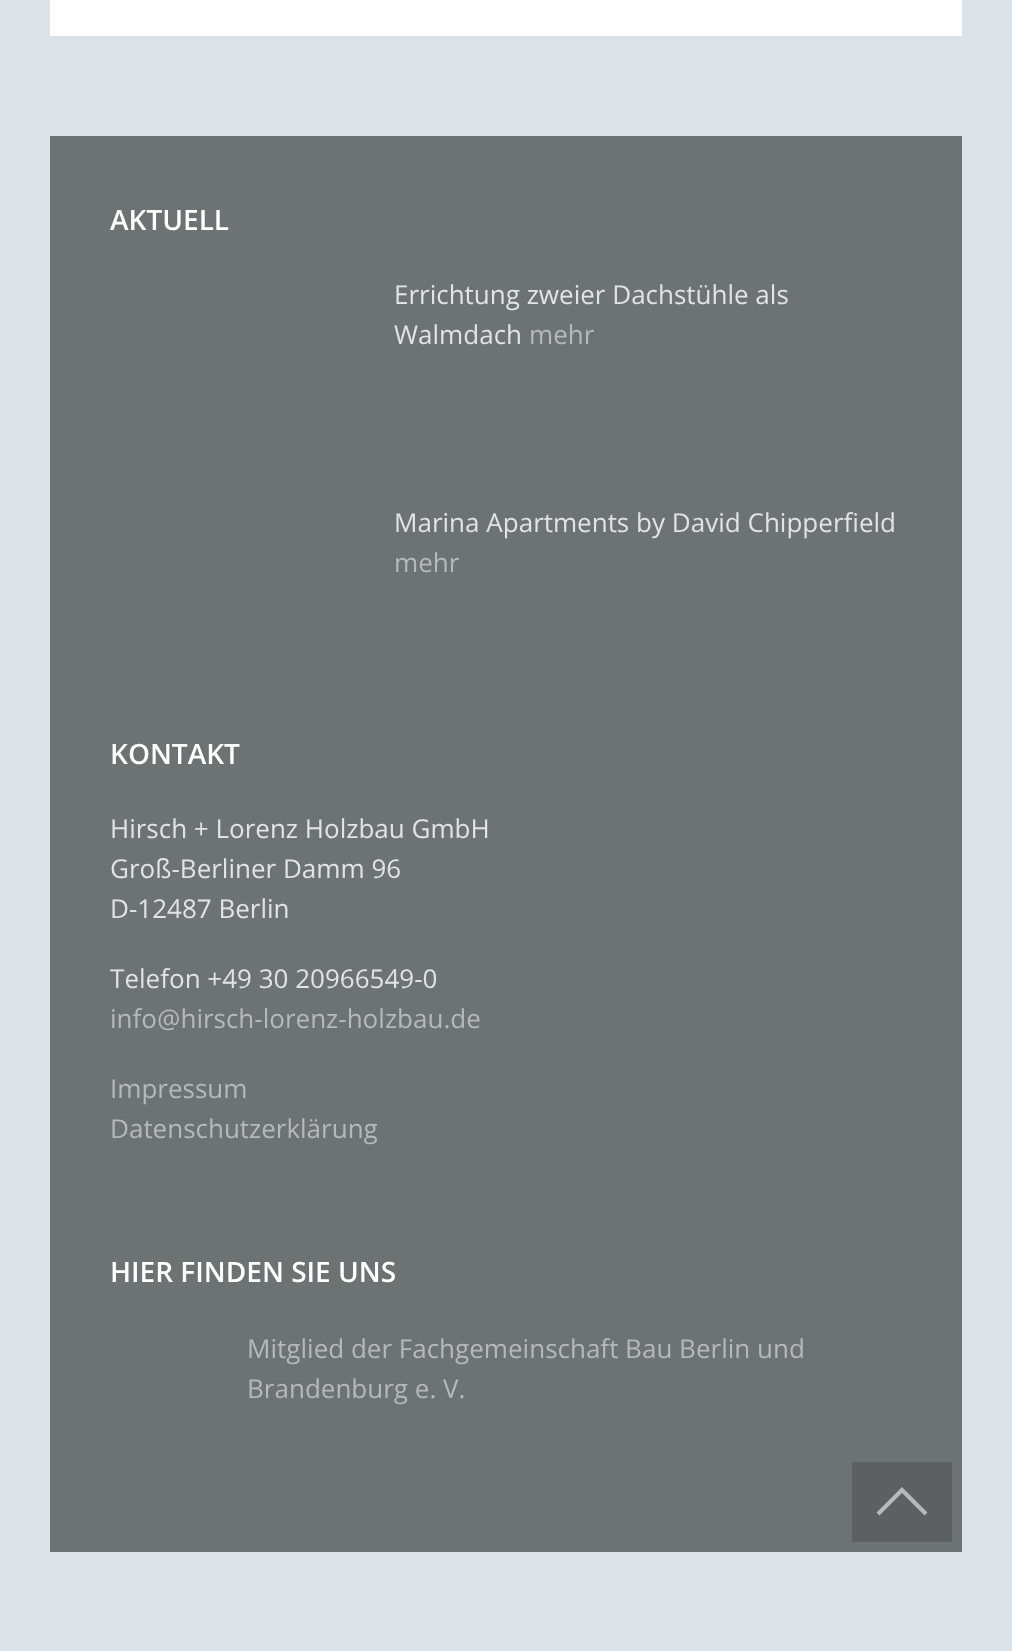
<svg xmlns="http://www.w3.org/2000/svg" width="1012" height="1651">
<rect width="100%" height="100%" fill="#dce3e8"/>
<rect x="50" width="912" height="36" fill="#fff"/>
<rect x="50" y="136" width="912" height="1416" fill="#6d7272"/>
<text x="110" y="230" style="font-family:Open Sans;font-size:28px;font-weight:600;fill:#fff">AKTUELL</text>
<text x="394" y="304" style="font-family:Open Sans;font-size:26px;fill:#e2e3e3">Errichtung zweier Dachstühle als</text>
<text x="394" y="344" style="font-family:Open Sans;font-size:26px;fill:#e2e3e3">Walmdach</text>
<text x="529" y="344" style="font-family:Open Sans;font-size:26px;fill:#b6b9b9">mehr</text>
<text x="394" y="532" style="font-family:Open Sans;font-size:26px;fill:#e2e3e3">Marina Apartments by David Chipperfield</text>
<text x="394" y="572" style="font-family:Open Sans;font-size:26px;fill:#b6b9b9">mehr</text>
<text x="110" y="764" style="font-family:Open Sans;font-size:28px;font-weight:600;fill:#fff">KONTAKT</text>
<text x="110" y="838" style="font-family:Open Sans;font-size:26px;fill:#e2e3e3">Hirsch + Lorenz Holzbau GmbH</text>
<text x="110" y="878" style="font-family:Open Sans;font-size:26px;fill:#e2e3e3">Groß-Berliner Damm 96</text>
<text x="110" y="918" style="font-family:Open Sans;font-size:26px;fill:#e2e3e3">D-12487 Berlin</text>
<text x="110" y="988" style="font-family:Open Sans;font-size:26px;fill:#e2e3e3">Telefon +49 30 20966549-0</text>
<text x="110" y="1028" style="font-family:Open Sans;font-size:26px;fill:#b6b9b9">info@hirsch-lorenz-holzbau.de</text>
<text x="110" y="1098" style="font-family:Open Sans;font-size:26px;fill:#b6b9b9">Impressum</text>
<text x="110" y="1138" style="font-family:Open Sans;font-size:26px;fill:#b6b9b9">Datenschutzerklärung</text>
<text x="110" y="1282" style="font-family:Open Sans;font-size:28px;font-weight:600;fill:#fff">HIER FINDEN SIE UNS</text>
<text x="247" y="1358" style="font-family:Open Sans;font-size:26px;fill:#b6b9b9">Mitglied der Fachgemeinschaft Bau Berlin und</text>
<text x="247" y="1398" style="font-family:Open Sans;font-size:26px;fill:#b6b9b9">Brandenburg e. V.</text>
<rect x="852" y="1462" width="100" height="80" fill="#5d6060"/>
<path d="M878 1514l24-24l24 24" fill="none" stroke="#b6b9b9" stroke-width="4.1"/>
</svg>
